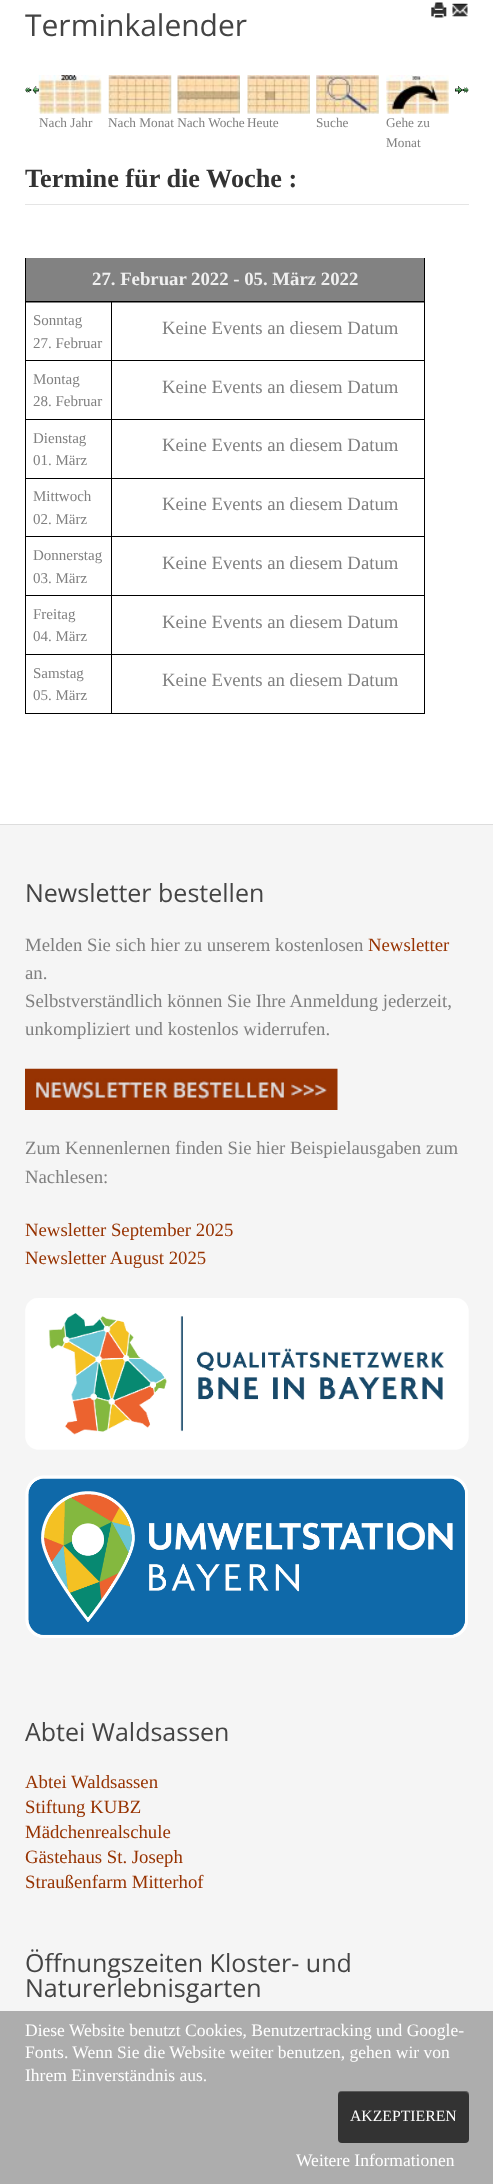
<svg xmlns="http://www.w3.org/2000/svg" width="493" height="2184">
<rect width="100%" height="100%" fill="#fff"/>
<image x="431" y="2" width="16" height="16" href="media/1.png"/>
<image x="452" y="3" width="16" height="14" href="media/2.png"/>
<text x="25" y="36" style="font-family:Open Sans;font-size:30px;fill:#444">Terminkalender</text>
<image x="25" y="87" width="7" height="6" href="media/3.png"/>
<image x="38" y="75" width="64" height="39" href="media/5.png"/>
<image x="32" y="86" width="7" height="8" href="media/4.png"/>
<image x="108" y="75" width="64" height="39" href="media/6.png"/>
<image x="177" y="75" width="63" height="39" href="media/7.png"/>
<image x="247" y="75" width="63" height="39" href="media/8.png"/>
<image x="316" y="75" width="63" height="39" href="media/9.png"/>
<image x="386" y="75" width="63" height="39" href="media/10.png"/>
<image x="455" y="86" width="8" height="8" href="media/11.png"/>
<image x="462" y="87" width="7" height="6" href="media/12.png"/>
<text x="39" y="127" style="font-family:Liberation Serif;font-size:13.25px;fill:#808080">Nach Jahr</text>
<text x="108" y="127" style="font-family:Liberation Serif;font-size:13.25px;fill:#808080">Nach Monat Nach Woche</text>
<text x="247" y="127" style="font-family:Liberation Serif;font-size:13.25px;fill:#808080">Heute</text>
<text x="316" y="127" style="font-family:Liberation Serif;font-size:13.25px;fill:#808080">Suche</text>
<text x="386" y="127" style="font-family:Liberation Serif;font-size:13.25px;fill:#808080">Gehe zu</text>
<text x="386" y="147" style="font-family:Liberation Serif;font-size:13.25px;fill:#808080">Monat</text>
<rect x="25" y="204" width="444" height="1" fill="#e5e5e5"/>
<text x="25" y="187" style="font-family:Liberation Serif;font-size:26.25px;font-weight:bold;fill:#333">Termine für die Woche :</text>
<rect x="424" y="258" width="1" height="456" fill="#000"/>
<rect x="25" y="713" width="400" height="1" fill="#000"/>
<rect x="25" y="258" width="1" height="456" fill="#000"/>
<rect x="26" y="258" width="398" height="45" fill="#828282"/>
<text x="92" y="285" style="font-family:Liberation Serif;font-size:18.75px;font-weight:bold;fill:#f0f0f0">27. Februar 2022 - 05. März 2022</text>
<rect x="25" y="301" width="400" height="1" fill="#000"/>
<rect x="25" y="360" width="400" height="1" fill="#000"/>
<rect x="25" y="419" width="400" height="1" fill="#000"/>
<rect x="25" y="478" width="400" height="1" fill="#000"/>
<rect x="25" y="536" width="400" height="1" fill="#000"/>
<rect x="25" y="595" width="400" height="1" fill="#000"/>
<rect x="25" y="654" width="400" height="1" fill="#000"/>
<rect x="111" y="654" width="1" height="60" fill="#000"/>
<rect x="111" y="595" width="1" height="60" fill="#000"/>
<rect x="111" y="536" width="1" height="60" fill="#000"/>
<rect x="111" y="478" width="1" height="60" fill="#000"/>
<rect x="111" y="419" width="1" height="60" fill="#000"/>
<rect x="111" y="360" width="1" height="60" fill="#000"/>
<rect x="111" y="301" width="1" height="60" fill="#000"/>
<text x="33" y="325" style="font-family:Liberation Serif;font-size:15px;fill:#808080">Sonntag</text>
<text x="33" y="348" style="font-family:Liberation Serif;font-size:15px;fill:#808080">27. Februar</text>
<text x="162" y="334" style="font-family:Liberation Serif;font-size:18.75px;fill:#808080">Keine Events an diesem Datum</text>
<text x="33" y="384" style="font-family:Liberation Serif;font-size:15px;fill:#808080">Montag</text>
<text x="33" y="406" style="font-family:Liberation Serif;font-size:15px;fill:#808080">28. Februar</text>
<text x="162" y="393" style="font-family:Liberation Serif;font-size:18.75px;fill:#808080">Keine Events an diesem Datum</text>
<text x="33" y="443" style="font-family:Liberation Serif;font-size:15px;fill:#808080">Dienstag</text>
<text x="33" y="465" style="font-family:Liberation Serif;font-size:15px;fill:#808080">01. März</text>
<text x="162" y="451" style="font-family:Liberation Serif;font-size:18.75px;fill:#808080">Keine Events an diesem Datum</text>
<text x="33" y="501" style="font-family:Liberation Serif;font-size:15px;fill:#808080">Mittwoch</text>
<text x="33" y="524" style="font-family:Liberation Serif;font-size:15px;fill:#808080">02. März</text>
<text x="162" y="510" style="font-family:Liberation Serif;font-size:18.75px;fill:#808080">Keine Events an diesem Datum</text>
<text x="33" y="560" style="font-family:Liberation Serif;font-size:15px;fill:#808080">Donnerstag</text>
<text x="33" y="583" style="font-family:Liberation Serif;font-size:15px;fill:#808080">03. März</text>
<text x="162" y="569" style="font-family:Liberation Serif;font-size:18.75px;fill:#808080">Keine Events an diesem Datum</text>
<text x="33" y="619" style="font-family:Liberation Serif;font-size:15px;fill:#808080">Freitag</text>
<text x="33" y="641" style="font-family:Liberation Serif;font-size:15px;fill:#808080">04. März</text>
<text x="162" y="628" style="font-family:Liberation Serif;font-size:18.75px;fill:#808080">Keine Events an diesem Datum</text>
<text x="33" y="678" style="font-family:Liberation Serif;font-size:15px;fill:#808080">Samstag</text>
<text x="33" y="700" style="font-family:Liberation Serif;font-size:15px;fill:#808080">05. März</text>
<text x="162" y="686" style="font-family:Liberation Serif;font-size:18.75px;fill:#808080">Keine Events an diesem Datum</text>
<rect y="825" width="493" height="1186" fill="#f5f5f5"/>
<rect y="824" width="493" height="1" fill="#ddd"/>
<text x="25" y="902" style="font-family:Open Sans;font-size:25px;fill:#444">Newsletter bestellen</text>
<text x="25" y="951" style="font-family:Liberation Serif;font-size:18.75px;fill:#808080">Melden Sie sich hier zu unserem kostenlosen</text>
<text x="368" y="951" style="font-family:Liberation Serif;font-size:18.75px;fill:#973302">Newsletter</text>
<text x="25" y="979" style="font-family:Liberation Serif;font-size:18.75px;fill:#808080">an.</text>
<text x="25" y="1007" style="font-family:Liberation Serif;font-size:18.75px;fill:#808080">Selbstverständlich können Sie Ihre Anmeldung jederzeit,</text>
<text x="25" y="1035" style="font-family:Liberation Serif;font-size:18.75px;fill:#808080">unkompliziert und kostenlos widerrufen.</text>
<image x="25" y="1068" width="313" height="42" href="media/13.png"/>
<text x="25" y="1154" style="font-family:Liberation Serif;font-size:18.75px;fill:#808080">Zum Kennenlernen finden Sie hier Beispielausgaben zum</text>
<text x="25" y="1183" style="font-family:Liberation Serif;font-size:18.75px;fill:#808080">Nachlesen:</text>
<text x="25" y="1236" style="font-family:Liberation Serif;font-size:18.75px;fill:#973302">Newsletter September 2025</text>
<text x="25" y="1264" style="font-family:Liberation Serif;font-size:18.75px;fill:#973302">Newsletter August 2025</text>
<image x="25" y="1298" width="444" height="152" href="media/14.png"/>
<image x="25" y="1475" width="443" height="163" href="media/15.png"/>
<text x="25" y="1741" style="font-family:Open Sans;font-size:25px;fill:#444">Abtei Waldsassen</text>
<text x="25" y="1788" style="font-family:Liberation Serif;font-size:18.75px;fill:#973302">Abtei Waldsassen</text>
<text x="25" y="1813" style="font-family:Liberation Serif;font-size:18.75px;fill:#973302">Stiftung KUBZ</text>
<text x="25" y="1838" style="font-family:Liberation Serif;font-size:18.75px;fill:#973302">Mädchenrealschule</text>
<text x="25" y="1863" style="font-family:Liberation Serif;font-size:18.75px;fill:#973302">Gästehaus St. Joseph</text>
<text x="25" y="1888" style="font-family:Liberation Serif;font-size:18.75px;fill:#973302">Straußenfarm Mitterhof</text>
<text x="25" y="1972" style="font-family:Open Sans;font-size:25px;fill:#444">Öffnungszeiten Kloster- und</text>
<text x="25" y="1997" style="font-family:Open Sans;font-size:25px;fill:#444">Naturerlebnisgarten</text>
<rect y="2011" width="493" height="173" fill="#adadad"/>
<text x="25" y="2036" style="font-family:Liberation Serif;font-size:17.5px;fill:#fff">Diese Website benutzt Cookies, Benutzertracking und Google-</text>
<text x="25" y="2058" style="font-family:Liberation Serif;font-size:17.5px;fill:#fff">Fonts. Wenn Sie die Website weiter benutzen, gehen wir von</text>
<text x="25" y="2081" style="font-family:Liberation Serif;font-size:17.5px;fill:#fff">Ihrem Einverständnis aus.</text>
<rect x="338" y="2091" width="131" height="52" rx="4" fill="#333"/>
<path d="M341 2092h124c2 0 4 2 4 4v-1c0-2-2-4-4-4h-123c-2 0-4 2-4 4v1c0-2 1-4 3-4z" fill="#ffffff33"/>
<text x="350" y="2121" style="font-family:Liberation Serif;font-size:15.75px;fill:#fff">AKZEPTIEREN</text>
<text x="296" y="2166" style="font-family:Liberation Serif;font-size:17.5px;fill:#fff">Weitere Informationen</text>
</svg>
